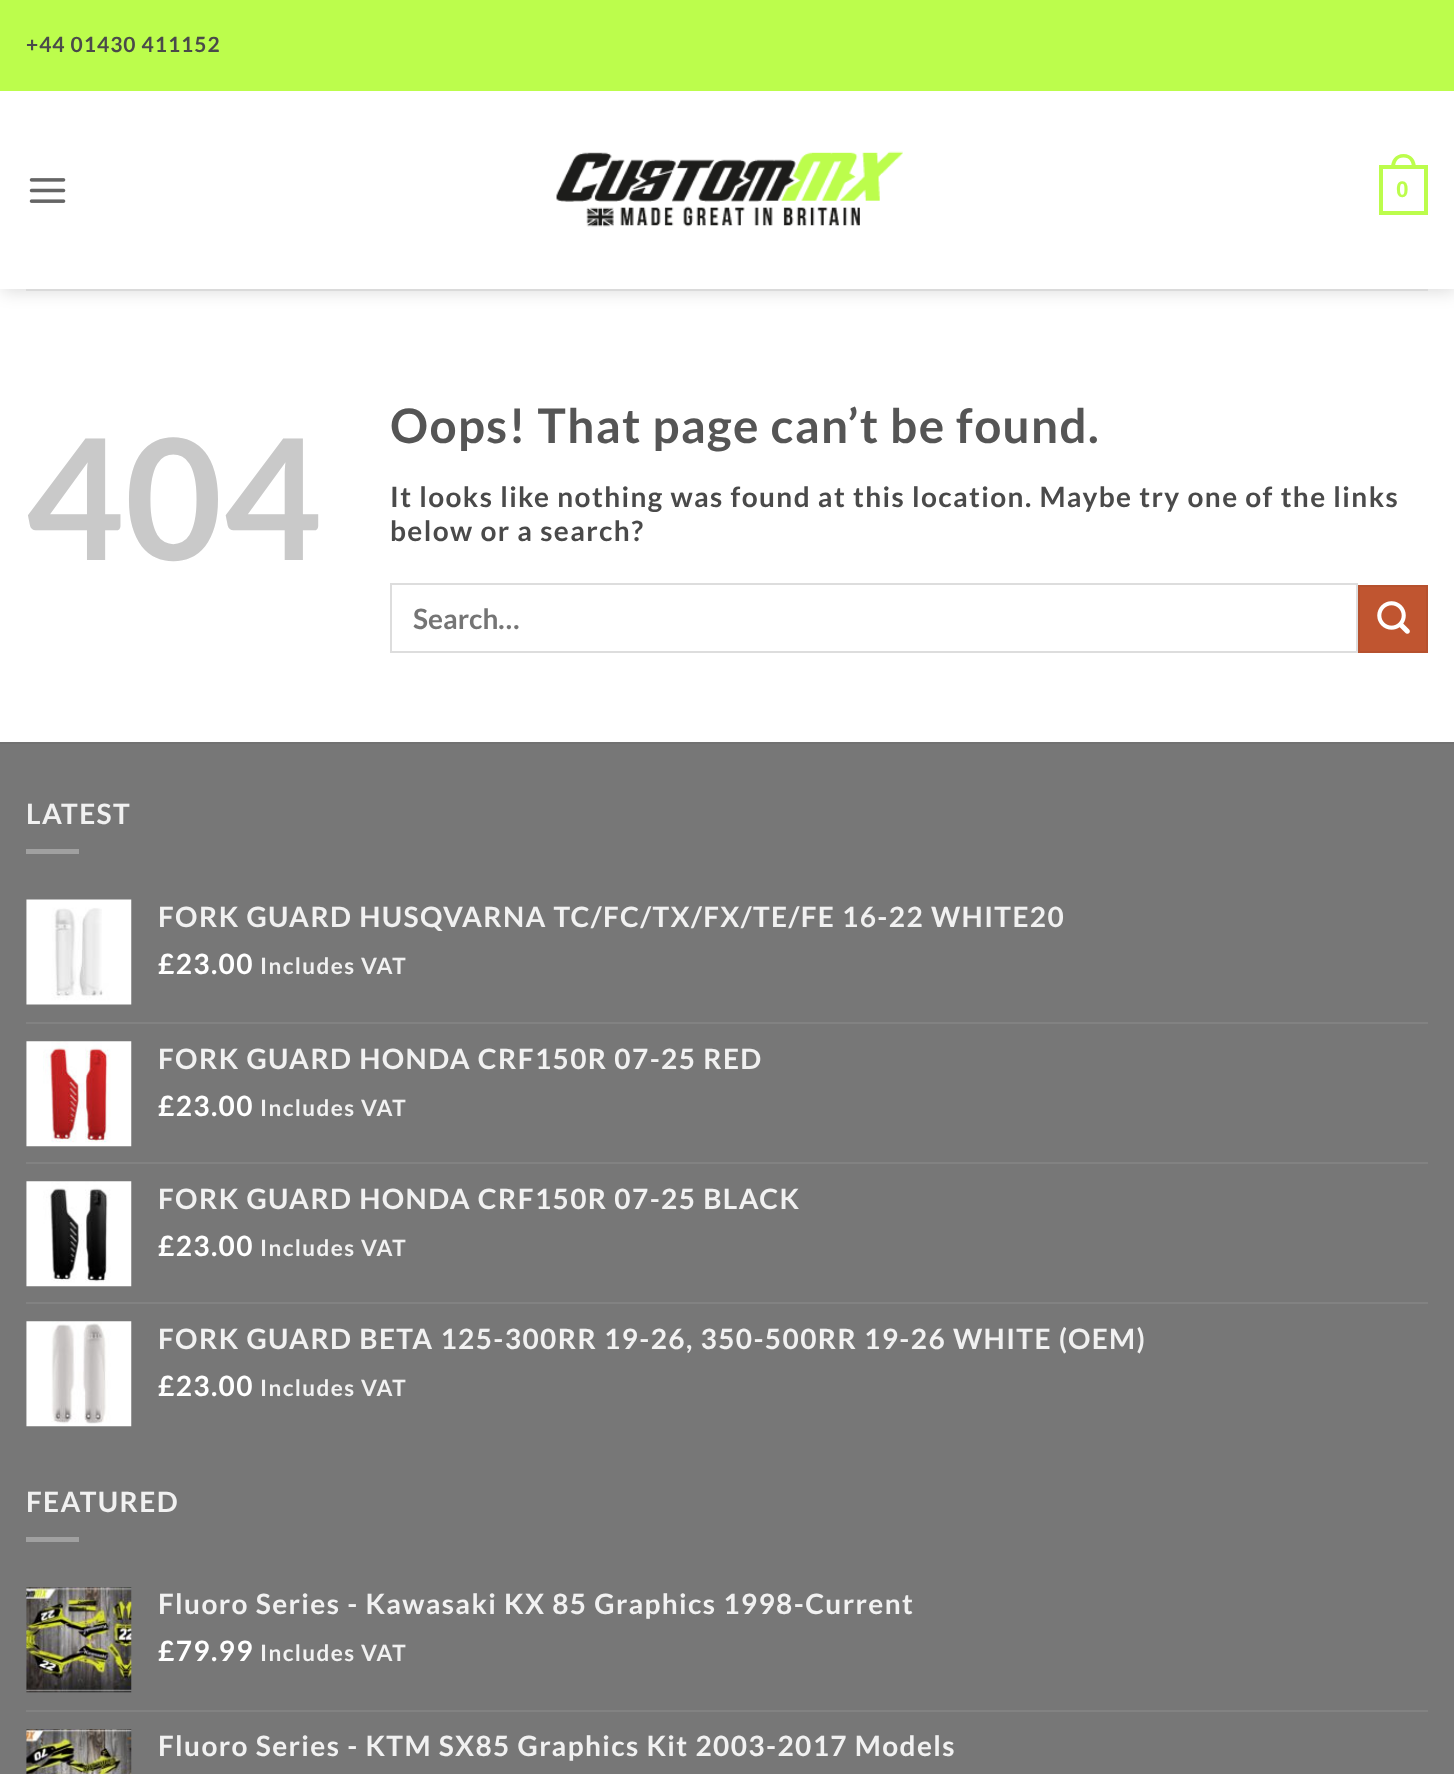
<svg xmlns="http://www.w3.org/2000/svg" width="1454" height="1774">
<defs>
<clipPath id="clip1"><path d="M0 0h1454v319h-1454zm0 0h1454v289h-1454z" clip-rule="evenodd"/></clipPath>
</defs>
<rect width="100%" height="100%" fill="#fff"/>
<g clip-path="url(#clip1)">
<rect x="2" y="2" width="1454" height="289" fill="#00000026" filter="blur(9px)"/>
</g>
<rect width="1454" height="91" fill="#bcfd4c"/>
<text x="26" y="52" style="font-family:Lato;font-size:21px;font-weight:bold;letter-spacing:1px;fill:#4a4a4a">+44 01430 411152</text>
<image x="29" y="178" width="37" height="25" href="media/1.png"/>
<image x="556" y="151" width="347" height="76" href="media/2.png"/>
<rect x="1381" y="167" width="45" height="46" fill="none" stroke="#bcfd4c" stroke-width="4"/>
<path d="M1403.5 154c8.5 0 12.5 6.5 12.5 14h-25c0-7.5 4-14 12.5-14zm0 3.5c6.5 0 8.5 5 8.5 10.5h-17c0-5.5 2-10.5 8.5-10.5z" fill="#bcfd4c" fill-rule="evenodd"/>
<text x="1396" y="197" style="font-family:Liberation Sans;font-size:22.5px;font-weight:bold;letter-spacing:1.4px;fill:#bcfd4c">0</text>
<rect x="26" y="289" width="1402" height="2" fill="#dadada"/>
<rect x="2" y="288" width="1452" height="1" fill="#ffffffe6"/>
<text x="26" y="560" style="font-family:Lato;font-size:168px;font-weight:bold;letter-spacing:1.4px;fill:#c9c9c9">404</text>
<text x="390" y="443" style="font-family:Lato;font-size:47.6px;font-weight:bold;letter-spacing:1.4px;fill:#555">Oops! That page can’t be found.</text>
<text x="390" y="507" style="font-family:Lato;font-size:28px;font-weight:bold;letter-spacing:1.4px;fill:#4a4a4a">It looks like nothing was found at this location. Maybe try one of the links</text>
<text x="390" y="541" style="font-family:Lato;font-size:28px;font-weight:bold;letter-spacing:1.4px;fill:#4a4a4a">below or a search?</text>
<rect x="391" y="584" width="966" height="68" fill="none" stroke="#ddd" stroke-width="2"/>
<text x="413" y="629" style="font-family:Lato;font-size:28px;font-weight:bold;fill:#757575">Search…</text>
<rect x="1359" y="586" width="68" height="66" fill="#c05530" stroke="#b6512e" stroke-width="2"/>
<image x="1377" y="601" width="33" height="33" href="media/3.png"/>
<rect y="744" width="1454" height="1030" fill="#777"/>
<rect y="742" width="1454" height="2" fill="#717171"/>
<text x="26" y="824" style="font-family:Lato;font-size:28px;font-weight:bold;letter-spacing:1.4px;fill:#f1f1f1">LATEST</text>
<rect x="26" y="849" width="53" height="5" fill="#a0a0a0"/>
<image x="26" y="899" width="106" height="106" href="media/4.png"/>
<text x="158" y="927" style="font-family:Lato;font-size:28px;font-weight:bold;letter-spacing:1.4px;fill:#f1f1f1">FORK GUARD HUSQVARNA TC/FC/TX/FX/TE/FE 16-22 WHITE20</text>
<text x="158" y="974" style="font-family:Lato;font-size:28px;font-weight:bold;letter-spacing:1.4px;fill:#fff">£23.00</text>
<text x="260" y="974" style="font-family:Lato;font-size:22.5px;font-weight:bold;letter-spacing:1.4px;fill:#f1f1f1">Includes VAT</text>
<rect x="26" y="1022" width="1402" height="2" fill="#828282"/>
<image x="26" y="1041" width="106" height="106" href="media/5.png"/>
<text x="158" y="1069" style="font-family:Lato;font-size:28px;font-weight:bold;letter-spacing:1.4px;fill:#f1f1f1">FORK GUARD HONDA CRF150R 07-25 RED</text>
<text x="158" y="1116" style="font-family:Lato;font-size:28px;font-weight:bold;letter-spacing:1.4px;fill:#fff">£23.00</text>
<text x="260" y="1116" style="font-family:Lato;font-size:22.5px;font-weight:bold;letter-spacing:1.4px;fill:#f1f1f1">Includes VAT</text>
<rect x="26" y="1162" width="1402" height="2" fill="#828282"/>
<image x="26" y="1181" width="106" height="106" href="media/6.png"/>
<text x="158" y="1209" style="font-family:Lato;font-size:28px;font-weight:bold;letter-spacing:1.4px;fill:#f1f1f1">FORK GUARD HONDA CRF150R 07-25 BLACK</text>
<text x="158" y="1256" style="font-family:Lato;font-size:28px;font-weight:bold;letter-spacing:1.4px;fill:#fff">£23.00</text>
<text x="260" y="1256" style="font-family:Lato;font-size:22.5px;font-weight:bold;letter-spacing:1.4px;fill:#f1f1f1">Includes VAT</text>
<rect x="26" y="1302" width="1402" height="2" fill="#828282"/>
<image x="26" y="1321" width="106" height="106" href="media/7.png"/>
<text x="158" y="1349" style="font-family:Lato;font-size:28px;font-weight:bold;letter-spacing:1.4px;fill:#f1f1f1">FORK GUARD BETA 125-300RR 19-26, 350-500RR 19-26 WHITE (OEM)</text>
<text x="158" y="1396" style="font-family:Lato;font-size:28px;font-weight:bold;letter-spacing:1.4px;fill:#fff">£23.00</text>
<text x="260" y="1396" style="font-family:Lato;font-size:22.5px;font-weight:bold;letter-spacing:1.4px;fill:#f1f1f1">Includes VAT</text>
<text x="26" y="1512" style="font-family:Lato;font-size:28px;font-weight:bold;letter-spacing:1.4px;fill:#f1f1f1">FEATURED</text>
<rect x="26" y="1537" width="53" height="5" fill="#a0a0a0"/>
<image x="26" y="1587" width="106" height="106" href="media/8.png"/>
<text x="158" y="1614" style="font-family:Lato;font-size:28px;font-weight:bold;letter-spacing:1.4px;fill:#f1f1f1">Fluoro Series - Kawasaki KX 85 Graphics 1998-Current</text>
<text x="158" y="1661" style="font-family:Lato;font-size:28px;font-weight:bold;letter-spacing:1.4px;fill:#fff">£79.99</text>
<text x="260" y="1661" style="font-family:Lato;font-size:22.5px;font-weight:bold;letter-spacing:1.4px;fill:#f1f1f1">Includes VAT</text>
<rect x="26" y="1710" width="1402" height="2" fill="#828282"/>
<image x="26" y="1729" width="106" height="45" href="media/9.png"/>
<text x="158" y="1756" style="font-family:Lato;font-size:28px;font-weight:bold;letter-spacing:1.4px;fill:#f1f1f1">Fluoro Series - KTM SX85 Graphics Kit 2003-2017 Models</text>
</svg>
